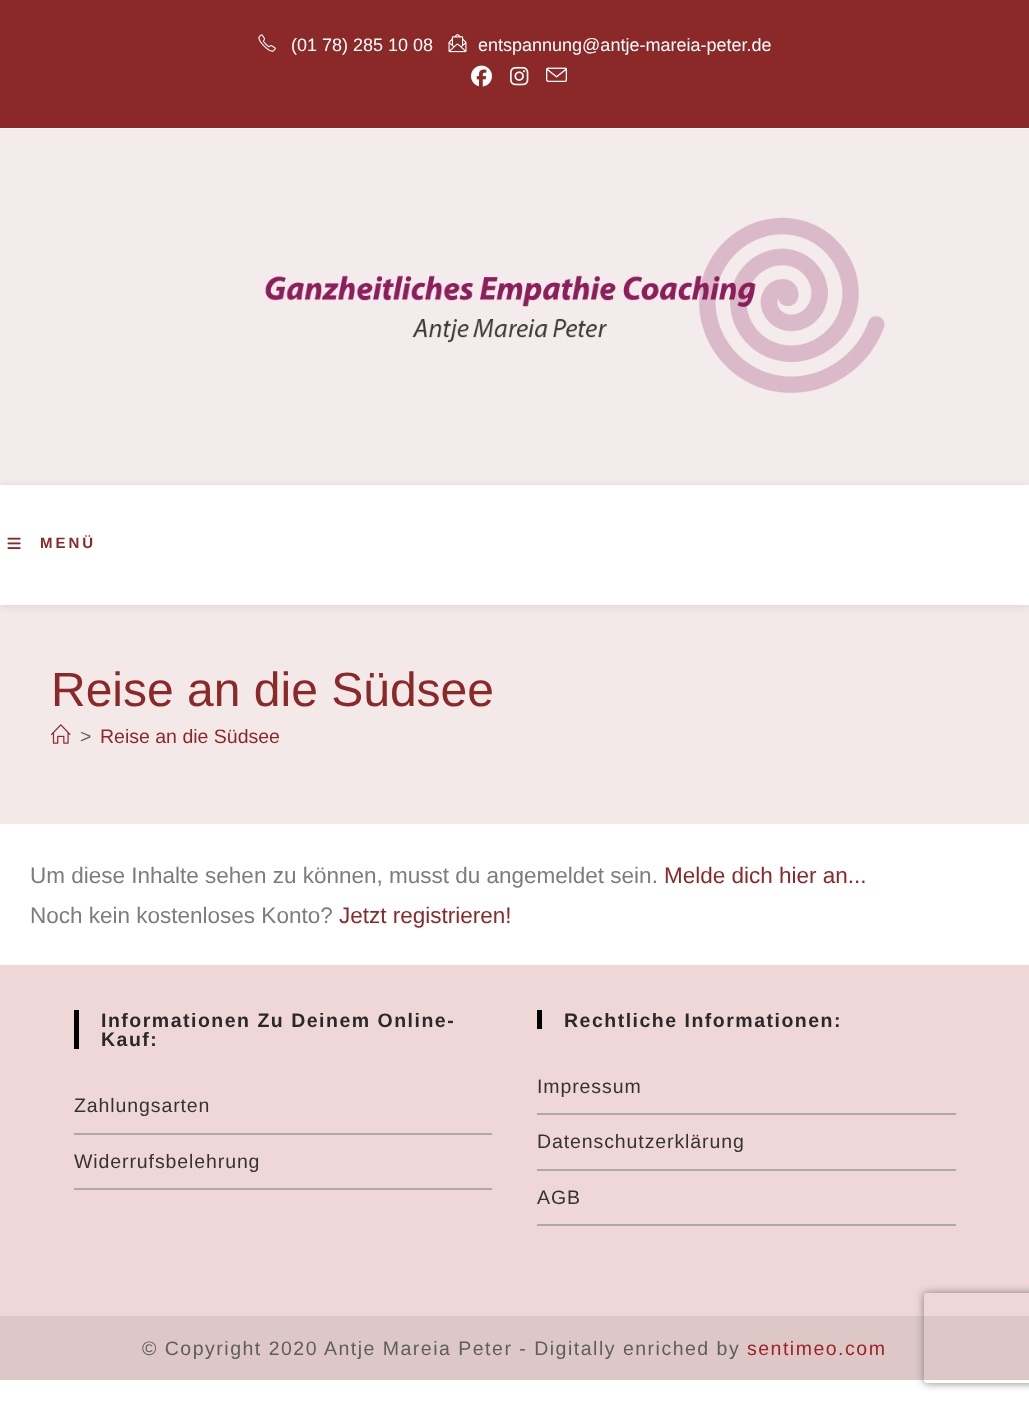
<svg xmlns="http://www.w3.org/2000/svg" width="1029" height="1404">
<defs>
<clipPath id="clip1"><path d="M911 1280h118v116h-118zm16 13h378c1.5 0 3 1.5 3 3v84c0 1.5-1.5 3-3 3h-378c-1.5 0-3-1.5-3-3v-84c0-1.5 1.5-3 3-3z" clip-rule="evenodd"/></clipPath>
</defs>
<rect width="100%" height="100%" fill="#fff"/>
<rect width="1029" height="128" fill="#8b2828"/>
<image x="258" y="34" width="18" height="18" href="media/1.png"/>
<text x="291" y="51" style="font-family:Liberation Sans;font-size:18px;fill:#fff">(01 78) 285 10 08</text>
<image x="448" y="34" width="19" height="19" href="media/2.png"/>
<text x="478" y="51" style="font-family:Liberation Sans;font-size:18px;fill:#fff">entspannung@antje-mareia-peter.de</text>
<image x="471" y="65" width="21" height="22" href="media/3.png"/>
<image x="510" y="66" width="19" height="20" href="media/4.png"/>
<image x="546" y="67" width="21" height="15" href="media/5.png"/>
<rect y="129" width="1029" height="356" fill="#f4ecec"/>
<image x="265" y="217" width="620" height="176" href="media/6.png"/>
<rect y="605" width="1029" height="219" fill="#f4e9e9"/>
<rect y="486" width="1029" height="120" fill="#0000001a" filter="blur(4px)"/>
<rect y="485" width="1029" height="120" fill="#fff"/>
<image x="7" y="537" width="14" height="12" href="media/7.png"/>
<text x="40" y="548" style="font-family:Liberation Sans;font-size:15px;font-weight:bold;letter-spacing:3px;fill:#8b2828">MENÜ</text>
<text x="51" y="706" style="font-family:Liberation Sans;font-size:48px;fill:#8b2828">Reise an die Südsee</text>
<image x="51" y="724" width="20" height="20" href="media/8.png"/>
<text x="80" y="743" style="font-family:Liberation Sans;font-size:19.5px;fill:#666">&gt;</text>
<text x="100" y="743" style="font-family:Liberation Sans;font-size:19.5px;fill:#8b2828">Reise an die Südsee</text>
<text x="30" y="883" style="font-family:Liberation Sans;font-size:22.5px;fill:#7c7c7c">Um diese Inhalte sehen zu können, musst du angemeldet sein.</text>
<text x="664" y="883" style="font-family:Liberation Sans;font-size:22.5px;fill:#8b2828">Melde dich hier an...</text>
<text x="30" y="923" style="font-family:Liberation Sans;font-size:22.5px;fill:#7c7c7c">Noch kein kostenloses Konto?</text>
<text x="339" y="923" style="font-family:Liberation Sans;font-size:22.5px;fill:#8b2828">Jetzt registrieren!</text>
<rect y="965" width="1029" height="351" fill="#efd7d7"/>
<rect x="74" y="1010" width="5" height="39" fill="#000"/>
<text x="101" y="1027" style="font-family:Liberation Sans;font-size:19.5px;font-weight:bold;letter-spacing:1.5px;fill:#292929">Informationen Zu Deinem Online-</text>
<text x="101" y="1046" style="font-family:Liberation Sans;font-size:19.5px;font-weight:bold;letter-spacing:1.5px;fill:#292929">Kauf:</text>
<rect x="74" y="1133" width="418" height="2" fill="#aaa"/>
<text x="74" y="1112" style="font-family:Liberation Sans;font-size:19.5px;letter-spacing:0.9px;fill:#333">Zahlungsarten</text>
<rect x="74" y="1188" width="418" height="2" fill="#aaa"/>
<text x="74" y="1168" style="font-family:Liberation Sans;font-size:19.5px;letter-spacing:0.9px;fill:#333">Widerrufsbelehrung</text>
<rect x="537" y="1010" width="5" height="19" fill="#000"/>
<text x="564" y="1027" style="font-family:Liberation Sans;font-size:19.5px;font-weight:bold;letter-spacing:1.5px;fill:#292929">Rechtliche Informationen:</text>
<rect x="537" y="1113" width="419" height="2" fill="#aaa"/>
<text x="537" y="1093" style="font-family:Liberation Sans;font-size:19.5px;letter-spacing:0.9px;fill:#333">Impressum</text>
<rect x="537" y="1169" width="419" height="2" fill="#aaa"/>
<text x="537" y="1148" style="font-family:Liberation Sans;font-size:19.5px;letter-spacing:0.9px;fill:#333">Datenschutzerklärung</text>
<rect x="537" y="1224" width="419" height="2" fill="#aaa"/>
<text x="537" y="1204" style="font-family:Liberation Sans;font-size:19.5px;letter-spacing:0.9px;fill:#333">AGB</text>
<rect y="1316" width="1029" height="64" fill="#ddc7c7"/>
<text x="142" y="1355" style="font-family:Liberation Sans;font-size:19.5px;letter-spacing:1.5px;fill:#5e5e5e">© Copyright 2020 Antje Mareia Peter - Digitally enriched by</text>
<text x="747" y="1355" style="font-family:Liberation Sans;font-size:19.5px;letter-spacing:1.5px;fill:#9e2222">sentimeo.com</text>
<g clip-path="url(#clip1)">
<rect x="924" y="1293" width="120" height="90" rx="3" fill="#808080" filter="blur(4px)"/>
</g>
</svg>
